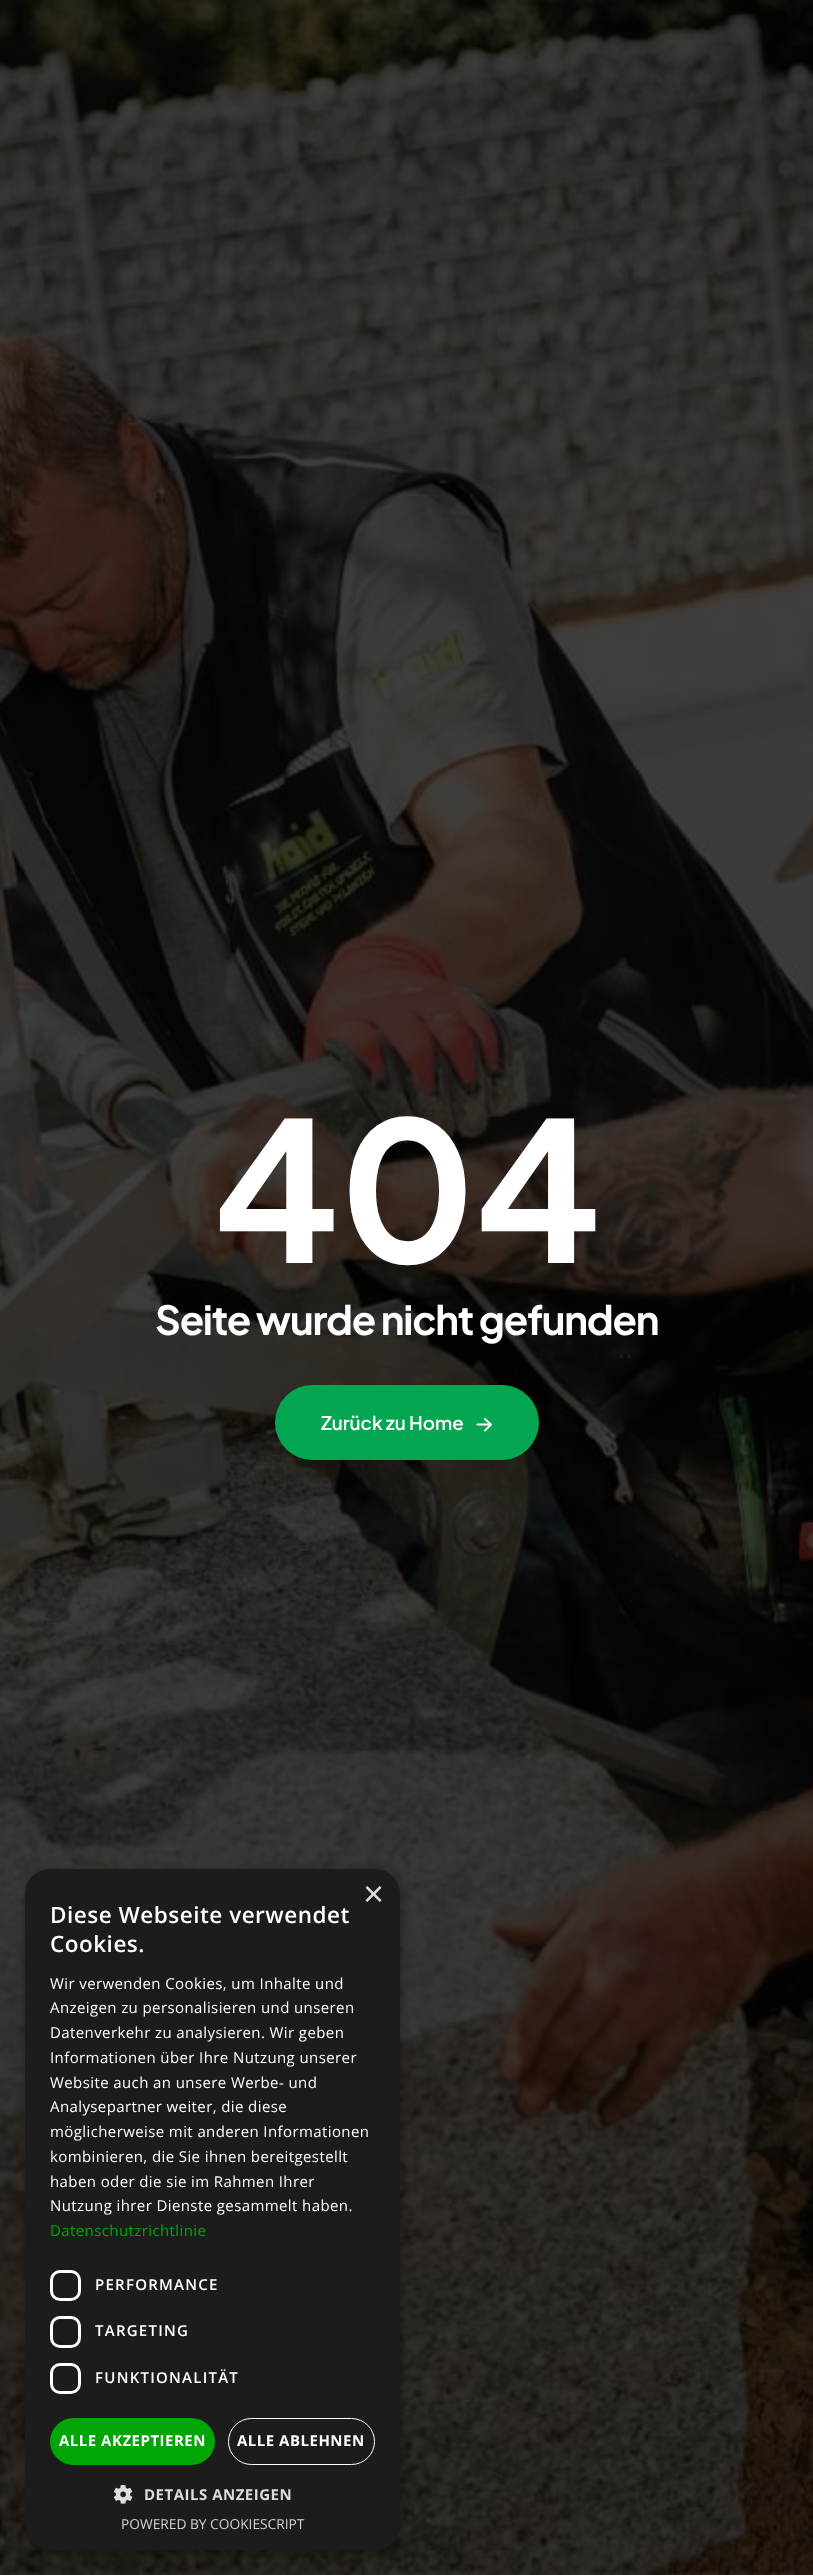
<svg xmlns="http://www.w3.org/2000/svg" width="813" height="2575">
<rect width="100%" height="100%" fill="#fff"/>
<image x="0" y="0" width="813" height="2575" href="media/1.png"/>
<text x="213" y="1263" style="font-family:Plus Jakarta Sans;font-size:194px;font-weight:bold;letter-spacing:-1.25px;fill:#fff">404</text>
<text x="155" y="1335" style="font-family:Plus Jakarta Sans;font-size:40px;font-weight:bold;letter-spacing:-1.25px;fill:#fff">Seite wurde nicht gefunden</text>
<rect x="275" y="1385" width="264" height="75" rx="37.5" fill="#05a651"/>
<text x="321" y="1430" style="font-family:Plus Jakarta Sans;font-size:18.75px;font-weight:600;fill:#fff">Zurück zu Home</text>
<path d="M477.5 1424.5h13.5m0 0l-6-5.5m6 5.5l-6 6" fill="none" stroke="#fff" stroke-width="1.9" stroke-linecap="round" stroke-linejoin="round"/>
<rect x="26" y="1871" width="375" height="682" rx="25" fill="#00000059" filter="blur(5px)"/>
<rect x="25" y="1869" width="375" height="681" rx="25" fill="#1c1c1c"/>
<text x="363" y="1906" style="font-family:Liberation Sans;font-size:36px;fill:#ddd">×</text>
<text x="50" y="1923" style="font-family:Open Sans;font-size:22.5px;font-weight:600;letter-spacing:0.5px;fill:#fff">Diese Webseite verwendet</text>
<text x="50" y="1952" style="font-family:Open Sans;font-size:22.5px;font-weight:600;letter-spacing:0.5px;fill:#fff">Cookies.</text>
<text x="50" y="1989" style="font-family:Open Sans;font-size:15px;letter-spacing:0.4px;fill:#fff">Wir verwenden Cookies, um Inhalte und</text>
<text x="50" y="2013" style="font-family:Open Sans;font-size:15px;letter-spacing:0.4px;fill:#fff">Anzeigen zu personalisieren und unseren</text>
<text x="50" y="2038" style="font-family:Open Sans;font-size:15px;letter-spacing:0.4px;fill:#fff">Datenverkehr zu analysieren. Wir geben</text>
<text x="50" y="2063" style="font-family:Open Sans;font-size:15px;letter-spacing:0.4px;fill:#fff">Informationen über Ihre Nutzung unserer</text>
<text x="50" y="2088" style="font-family:Open Sans;font-size:15px;letter-spacing:0.4px;fill:#fff">Website auch an unsere Werbe- und</text>
<text x="50" y="2112" style="font-family:Open Sans;font-size:15px;letter-spacing:0.4px;fill:#fff">Analysepartner weiter, die diese</text>
<text x="50" y="2137" style="font-family:Open Sans;font-size:15px;letter-spacing:0.4px;fill:#fff">möglicherweise mit anderen Informationen</text>
<text x="50" y="2162" style="font-family:Open Sans;font-size:15px;letter-spacing:0.4px;fill:#fff">kombinieren, die Sie ihnen bereitgestellt</text>
<text x="50" y="2187" style="font-family:Open Sans;font-size:15px;letter-spacing:0.4px;fill:#fff">haben oder die sie im Rahmen Ihrer</text>
<text x="50" y="2211" style="font-family:Open Sans;font-size:15px;letter-spacing:0.4px;fill:#fff">Nutzung ihrer Dienste gesammelt haben.</text>
<text x="50" y="2236" style="font-family:Open Sans;font-size:15px;letter-spacing:0.4px;fill:#00a605">Datenschutzrichtlinie</text>
<rect x="51.5" y="2271.5" width="28" height="28" rx="8.5" fill="none" stroke="#fff" stroke-width="3"/>
<text x="95" y="2290" style="font-family:Open Sans;font-size:15px;font-weight:600;letter-spacing:1.25px;fill:#fff">PERFORMANCE</text>
<rect x="51.5" y="2317.5" width="28" height="29" rx="8.5" fill="none" stroke="#fff" stroke-width="3"/>
<text x="95" y="2336" style="font-family:Open Sans;font-size:15px;font-weight:600;letter-spacing:1.25px;fill:#fff">TARGETING</text>
<rect x="51.5" y="2364.5" width="28" height="28" rx="8.5" fill="none" stroke="#fff" stroke-width="3"/>
<text x="95" y="2383" style="font-family:Open Sans;font-size:15px;font-weight:600;letter-spacing:1.25px;fill:#fff">FUNKTIONALITÄT</text>
<rect x="50" y="2418" width="165" height="47" rx="23.5" fill="#00a605"/>
<text x="59" y="2446" style="font-family:Open Sans;font-size:15px;font-weight:bold;letter-spacing:0.5px;fill:#fff">ALLE AKZEPTIEREN</text>
<rect x="228.5" y="2418.5" width="146" height="46" rx="23" fill="none" stroke="#fff"/>
<text x="237" y="2446" style="font-family:Open Sans;font-size:15px;font-weight:bold;letter-spacing:0.5px;fill:#fff">ALLE ABLEHNEN</text>
<image x="114" y="2485" width="19" height="19" href="media/2.png"/>
<text x="144" y="2500" style="font-family:Open Sans;font-size:15px;font-weight:bold;letter-spacing:0.5px;fill:#ddd">DETAILS ANZEIGEN</text>
<text x="121" y="2529" style="font-family:Open Sans;font-size:13.75px;fill:#d2d2d2">POWERED BY COOKIESCRIPT</text>
</svg>
